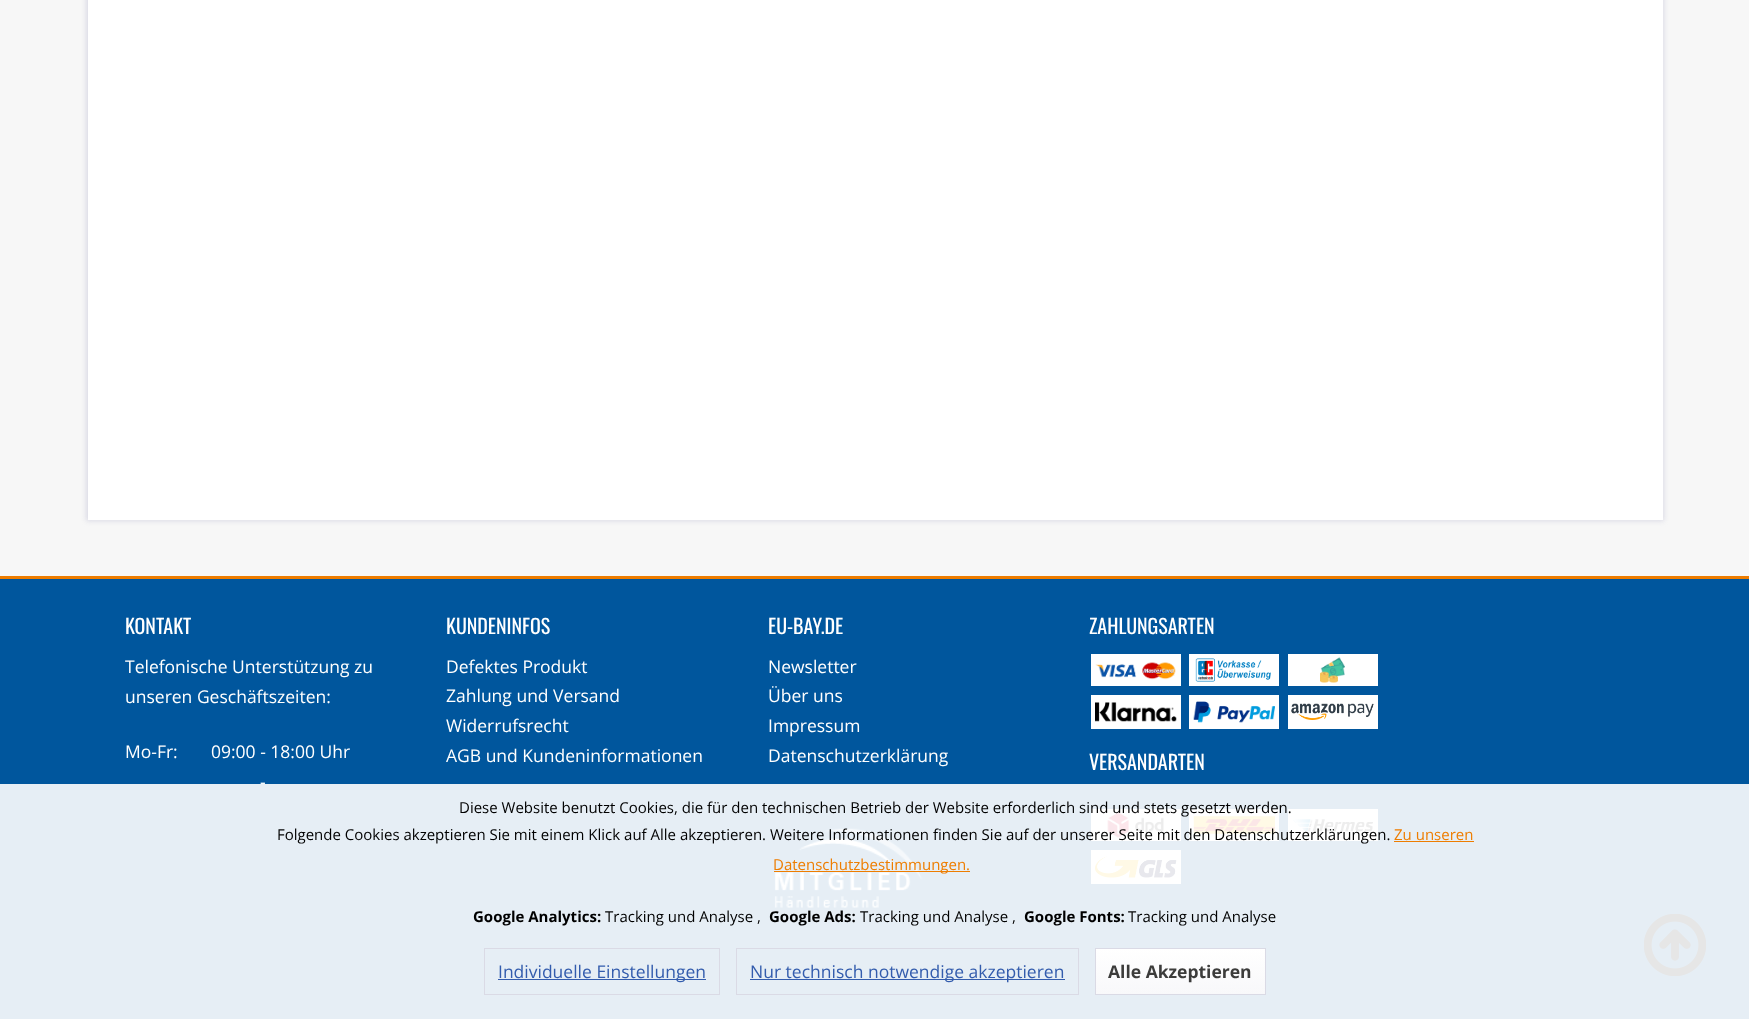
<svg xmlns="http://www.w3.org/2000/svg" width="1749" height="1019">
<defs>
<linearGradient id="g1" gradientUnits="userSpaceOnUse" x1="1181" y1="949" x2="1181" y2="994"><stop offset="0" stop-color="#fff"/><stop offset="1" stop-color="#f8f8fa"/></linearGradient>
</defs>
<rect width="100%" height="100%" fill="#f7f7f7"/>
<rect x="86" y="-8" width="1578" height="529" fill="#dadae5" filter="blur(2.5px)"/>
<rect x="88" width="1575" height="520" fill="#fff"/>
<rect y="579" width="1749" height="440" fill="#00569d"/>
<rect y="576" width="1749" height="3" fill="#ee7d00"/>
<text x="125" y="634" style="font-family:Oswald;font-size:20px;fill:#fff">KONTAKT</text>
<text x="125" y="673" style="font-family:Open Sans;font-size:17.5px;fill:#fff">Telefonische Unterstützung zu</text>
<text x="125" y="703" style="font-family:Open Sans;font-size:17.5px;fill:#fff">unseren Geschäftszeiten:</text>
<text x="125" y="758" style="font-family:Open Sans;font-size:17.5px;fill:#fff">Mo-Fr:</text>
<text x="211" y="758" style="font-family:Open Sans;font-size:17.5px;fill:#fff">09:00 - 18:00 Uhr</text>
<text x="260" y="788" style="font-family:Open Sans;font-size:17.5px;fill:#fff">-</text>
<text x="446" y="634" style="font-family:Oswald;font-size:20px;fill:#fff">KUNDENINFOS</text>
<text x="446" y="673" style="font-family:Open Sans;font-size:17.5px;fill:#fff">Defektes Produkt</text>
<text x="446" y="702" style="font-family:Open Sans;font-size:17.5px;fill:#fff">Zahlung und Versand</text>
<text x="446" y="732" style="font-family:Open Sans;font-size:17.5px;fill:#fff">Widerrufsrecht</text>
<text x="446" y="762" style="font-family:Open Sans;font-size:17.5px;fill:#fff">AGB und Kundeninformationen</text>
<text x="768" y="634" style="font-family:Oswald;font-size:20px;fill:#fff">EU-BAY.DE</text>
<text x="768" y="673" style="font-family:Open Sans;font-size:17.5px;fill:#fff">Newsletter</text>
<text x="768" y="702" style="font-family:Open Sans;font-size:17.5px;fill:#fff">Über uns</text>
<text x="768" y="732" style="font-family:Open Sans;font-size:17.5px;fill:#fff">Impressum</text>
<text x="768" y="762" style="font-family:Open Sans;font-size:17.5px;fill:#fff">Datenschutzerklärung</text>
<image x="774" y="828" width="149" height="80" href="media/1.png"/>
<text x="1089" y="634" style="font-family:Oswald;font-size:20px;fill:#fff">ZAHLUNGSARTEN</text>
<rect x="1091" y="654" width="90" height="32" fill="#fff"/>
<image x="1095" y="662" width="81" height="18" href="media/2.png"/>
<rect x="1189" y="654" width="90" height="32" fill="#fff"/>
<image x="1195" y="658" width="76" height="24" href="media/3.png"/>
<rect x="1288" y="654" width="90" height="32" fill="#fff"/>
<image x="1320" y="657" width="25" height="26" href="media/4.png"/>
<rect x="1091" y="695" width="90" height="34" fill="#fff"/>
<image x="1095" y="702" width="82" height="20" href="media/5.png"/>
<rect x="1189" y="695" width="90" height="34" fill="#fff"/>
<image x="1193" y="701" width="82" height="22" href="media/6.png"/>
<rect x="1288" y="695" width="90" height="34" fill="#fff"/>
<image x="1291" y="703" width="83" height="17" href="media/7.png"/>
<text x="1089" y="770" style="font-family:Oswald;font-size:20px;fill:#fff">VERSANDARTEN</text>
<rect x="1091" y="809" width="90" height="32" fill="#fff"/>
<image x="1107" y="812" width="57" height="26" href="media/8.png"/>
<rect x="1189" y="809" width="90" height="32" fill="#fff"/>
<image x="1193" y="816" width="82" height="18" href="media/9.png"/>
<rect x="1288" y="809" width="90" height="32" fill="#fff"/>
<image x="1293" y="819" width="81" height="13" href="media/10.png"/>
<rect x="1091" y="850" width="90" height="34" fill="#fff"/>
<image x="1095" y="856" width="82" height="22" href="media/11.png"/>
<image x="1644" y="914" width="62" height="62" href="media/12.png"/>
<rect y="784" width="1749" height="235" fill="#ffffffe6"/>
<text x="459" y="813" style="font-family:Open Sans;font-size:15px;fill:#000">Diese Website benutzt Cookies, die für den technischen Betrieb der Website erforderlich sind und stets gesetzt werden.</text>
<text x="277" y="840" style="font-family:Open Sans;font-size:15px;fill:#000">Folgende Cookies akzeptieren Sie mit einem Klick auf Alle akzeptieren. Weitere Informationen finden Sie auf der unserer Seite mit den Datenschutzerklärungen.</text>
<text x="1394" y="840" style="font-family:Open Sans;font-size:15px;fill:#ee7d00">Zu unseren</text>
<rect x="1394" y="841" width="80" height="1" fill="#ee7d00"/>
<rect x="774" y="871" width="196" height="1" fill="#ee7d00"/>
<text x="773" y="870" style="font-family:Open Sans;font-size:15px;fill:#ee7d00">Datenschutzbestimmungen.</text>
<text x="473" y="922" style="font-family:Open Sans;font-size:15px;font-weight:bold;fill:#000">Google Analytics:</text>
<text x="605" y="922" style="font-family:Open Sans;font-size:15px;fill:#000">Tracking und Analyse ,</text>
<text x="769" y="922" style="font-family:Open Sans;font-size:15px;font-weight:bold;fill:#000">Google Ads:</text>
<text x="860" y="922" style="font-family:Open Sans;font-size:15px;fill:#000">Tracking und Analyse ,</text>
<text x="1024" y="922" style="font-family:Open Sans;font-size:15px;font-weight:bold;fill:#000">Google Fonts:</text>
<text x="1128" y="922" style="font-family:Open Sans;font-size:15px;fill:#000">Tracking und Analyse</text>
<rect x="484.5" y="948.5" width="235" height="46" fill="none" stroke="#dadae5"/>
<rect x="498" y="979" width="208" height="1" fill="#335cad"/>
<text x="498" y="978" style="font-family:Open Sans;font-size:17.5px;fill:#335cad">Individuelle Einstellungen</text>
<rect x="736.5" y="948.5" width="342" height="46" fill="none" stroke="#dadae5"/>
<rect x="750" y="979" width="315" height="1" fill="#335cad"/>
<text x="750" y="978" style="font-family:Open Sans;font-size:17.5px;fill:#335cad">Nur technisch notwendige akzeptieren</text>
<rect x="1096" y="949" width="169" height="45" fill="url(#g1)"/>
<rect x="1095.5" y="948.5" width="170" height="46" fill="none" stroke="#dadae5"/>
<text x="1108" y="978" style="font-family:Open Sans;font-size:17.5px;font-weight:bold;fill:#3c3c3b">Alle Akzeptieren</text>
</svg>
